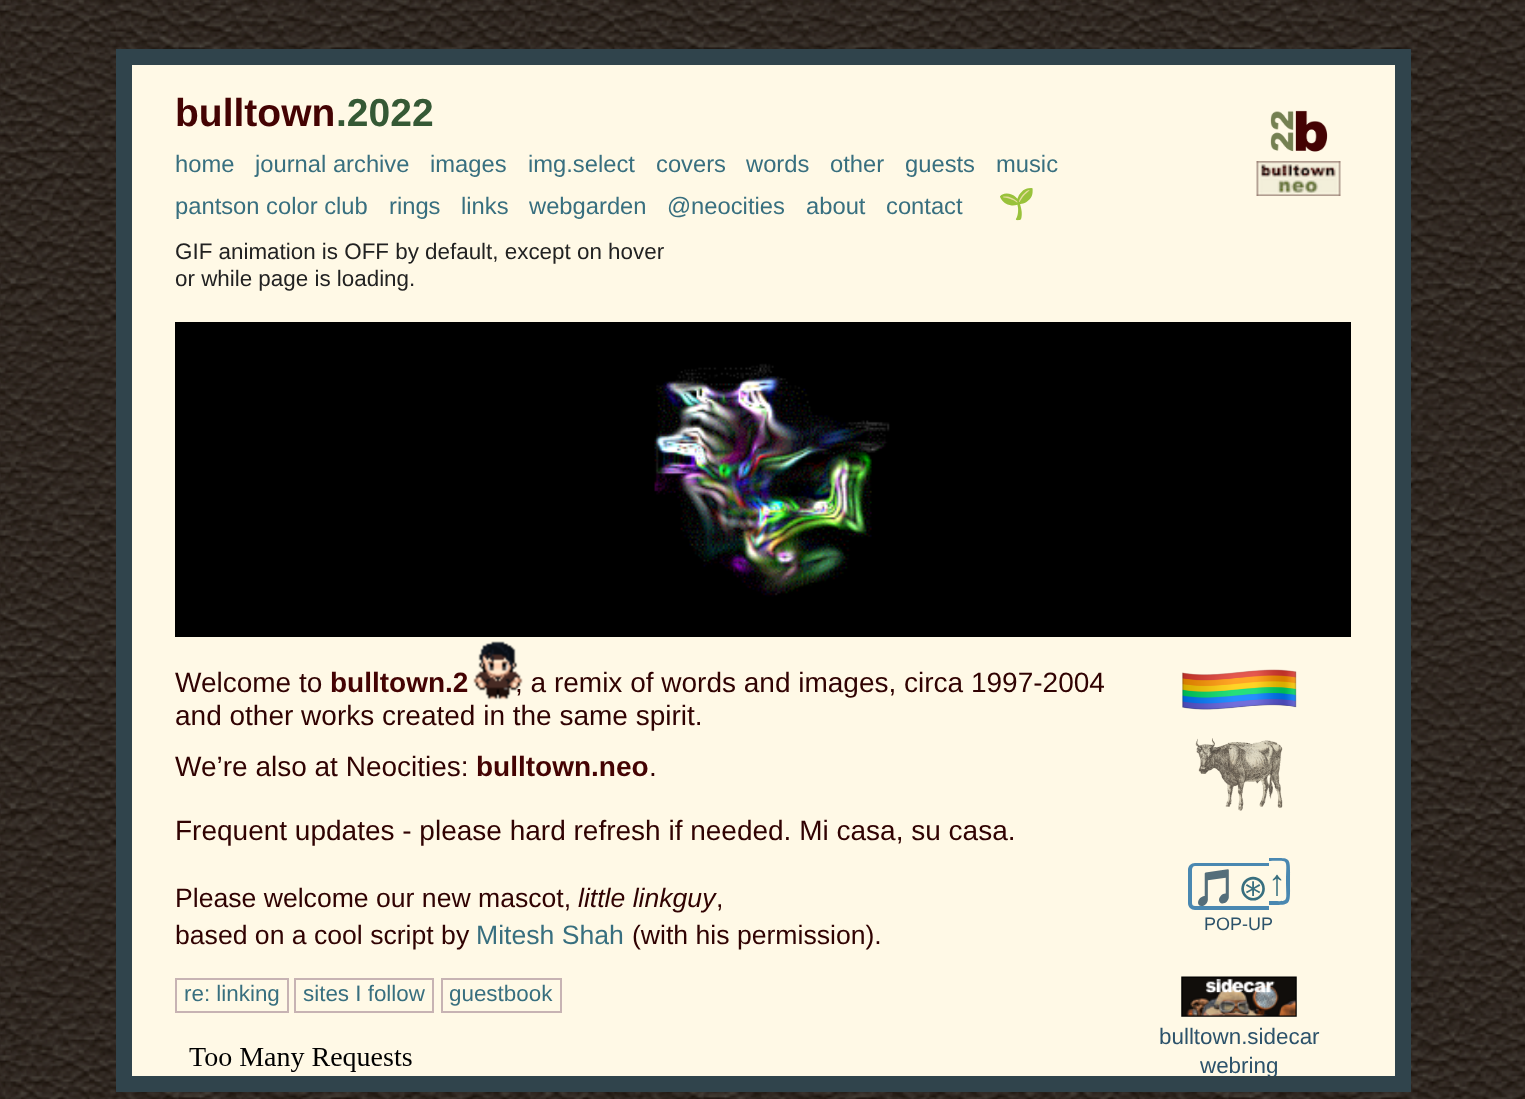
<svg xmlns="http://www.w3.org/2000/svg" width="1525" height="1099">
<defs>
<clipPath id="clip1"><rect x="175" y="226" width="1176" height="850"/></clipPath>
</defs>
<rect width="100%" height="100%" fill="#0f0604"/>
<image x="0" y="0" width="1525" height="1099" href="media/1.png"/>
<rect x="124" y="57" width="1279" height="1027" fill="#fff9e6" stroke="#30444c" stroke-width="16"/>
<text x="175" y="126" style="font-family:Liberation Sans;font-size:39px;font-weight:bold;fill:#440303">bulltown</text>
<text x="336" y="126" style="font-family:Liberation Sans;font-size:39px;font-weight:bold;fill:#355935">.2022</text>
<image x="1270" y="110" width="58" height="42" href="media/2.png"/>
<image x="1256" y="161" width="85" height="35" href="media/3.png"/>
<text x="175" y="172" style="font-family:Liberation Sans;font-size:23.75px;fill:#386f7f">home</text>
<text x="255" y="172" style="font-family:Liberation Sans;font-size:23.75px;fill:#386f7f">journal archive</text>
<text x="430" y="172" style="font-family:Liberation Sans;font-size:23.75px;fill:#386f7f">images</text>
<text x="528" y="172" style="font-family:Liberation Sans;font-size:23.75px;fill:#386f7f">img.select</text>
<text x="656" y="172" style="font-family:Liberation Sans;font-size:23.75px;fill:#386f7f">covers</text>
<text x="746" y="172" style="font-family:Liberation Sans;font-size:23.75px;fill:#386f7f">words</text>
<text x="830" y="172" style="font-family:Liberation Sans;font-size:23.75px;fill:#386f7f">other</text>
<text x="905" y="172" style="font-family:Liberation Sans;font-size:23.75px;fill:#386f7f">guests</text>
<text x="996" y="172" style="font-family:Liberation Sans;font-size:23.75px;fill:#386f7f">music</text>
<text x="175" y="214" style="font-family:Liberation Sans;font-size:23.75px;fill:#386f7f">pantson color club</text>
<text x="389" y="214" style="font-family:Liberation Sans;font-size:23.75px;fill:#386f7f">rings</text>
<text x="461" y="214" style="font-family:Liberation Sans;font-size:23.75px;fill:#386f7f">links</text>
<text x="529" y="214" style="font-family:Liberation Sans;font-size:23.75px;fill:#386f7f">webgarden</text>
<text x="667" y="214" style="font-family:Liberation Sans;font-size:23.75px;fill:#386f7f">@neocities</text>
<text x="806" y="214" style="font-family:Liberation Sans;font-size:23.75px;fill:#386f7f">about</text>
<text x="886" y="214" style="font-family:Liberation Sans;font-size:23.75px;fill:#386f7f">contact</text>
<text x="998" y="214" style="font-family:Noto Color Emoji;font-size:30px;fill:#386f7f">🌱</text>
<text x="175" y="259" style="font-family:Liberation Sans;font-size:22.4px;fill:#222">GIF animation is OFF by default, except on hover</text>
<text x="175" y="286" style="font-family:Liberation Sans;font-size:22.4px;fill:#222">or while page is loading.</text>
<rect x="175" y="322" width="1176" height="315" fill="#000"/>
<image x="654" y="363" width="236" height="234" href="media/4.png"/>
<text x="175" y="692" style="font-family:Liberation Sans;font-size:28px;fill:#300202">Welcome to</text>
<text x="330" y="692" style="font-family:Liberation Sans;font-size:28px;font-weight:bold;fill:#440303">bulltown.2</text>
<text x="515" y="692" style="font-family:Liberation Sans;font-size:28px;fill:#300202">, a remix of words and images, circa 1997-2004</text>
<text x="175" y="725" style="font-family:Liberation Sans;font-size:28px;fill:#300202">and other works created in the same spirit.</text>
<text x="175" y="776" style="font-family:Liberation Sans;font-size:28px;fill:#300202">We’re also at Neocities:</text>
<text x="476" y="776" style="font-family:Liberation Sans;font-size:28px;font-weight:bold;fill:#440303">bulltown.neo</text>
<text x="649" y="776" style="font-family:Liberation Sans;font-size:28px;fill:#300202">.</text>
<text x="175" y="840" style="font-family:Liberation Sans;font-size:28px;fill:#300202">Frequent updates - please hard refresh if needed. Mi casa, su casa.</text>
<text x="175" y="907" style="font-family:Liberation Sans;font-size:26.6px;fill:#300202">Please welcome our new mascot,</text>
<text x="578" y="907" style="font-family:Liberation Sans;font-size:26.6px;font-style:italic;fill:#300202">little linkguy</text>
<text x="716" y="907" style="font-family:Liberation Sans;font-size:26.6px;fill:#300202">,</text>
<text x="175" y="944" style="font-family:Liberation Sans;font-size:26.6px;fill:#300202">based on a cool script by</text>
<text x="476" y="944" style="font-family:Liberation Sans;font-size:26.6px;fill:#386f7f">Mitesh Shah</text>
<text x="632" y="944" style="font-family:Liberation Sans;font-size:26.6px;fill:#300202">(with his permission).</text>
<image x="1182" y="669" width="115" height="41" href="media/5.png"/>
<image x="1195" y="738" width="88" height="73" href="media/6.png"/>
<path d="M1195 863h74v47h-74c-4 0-7-3-7-7v-33c0-4 3-7 7-7zm0 3h74v40h-74c-2 0-3-1-3-3v-33c0-2 1-4 3-4z" fill="#4a88b1" fill-rule="evenodd"/>
<text x="1192" y="900" style="font-family:Noto Color Emoji;font-size:36px;fill:#386f7f">🎵</text>
<text x="1238" y="900" style="font-family:DejaVu Sans;font-size:36px;fill:#386f7f">⊛</text>
<path d="M1269 858c23 0 21-2 21 23c0 25 2 24-21 24zm0 3c21 0 17-3 17 20c0 23 4 20-17 20z" fill="#4a88b1" fill-rule="evenodd"/>
<text x="1268" y="895" style="font-family:Liberation Sans;font-size:36px;fill:#386f7f">↑</text>
<text x="1204" y="930" style="font-family:Liberation Sans;font-size:18px;fill:#2c526a">POP-UP</text>
<image x="1181" y="976" width="116" height="41" href="media/7.png"/>
<text x="1159" y="1044" style="font-family:Liberation Sans;font-size:22.4px;fill:#2c526a">bulltown.sidecar</text>
<g clip-path="url(#clip1)">
<text x="1200" y="1073" style="font-family:Liberation Sans;font-size:22.4px;fill:#2c526a">webring</text>
</g>
<rect x="176" y="979" width="112" height="33" fill="none" stroke="#c7b3b3" stroke-width="2"/>
<text x="184" y="1001" style="font-family:Liberation Sans;font-size:22.4px;fill:#386f7f">re: linking</text>
<rect x="295" y="979" width="138" height="33" fill="none" stroke="#c7b3b3" stroke-width="2"/>
<text x="303" y="1001" style="font-family:Liberation Sans;font-size:22.4px;fill:#386f7f">sites I follow</text>
<rect x="442" y="979" width="119" height="33" fill="none" stroke="#c7b3b3" stroke-width="2"/>
<text x="449" y="1001" style="font-family:Liberation Sans;font-size:22.4px;fill:#386f7f">guestbook</text>
<image x="189" y="1048" width="223" height="24" href="media/8.png"/>
<image x="473" y="641" width="50" height="59" href="media/9.png"/>
</svg>
